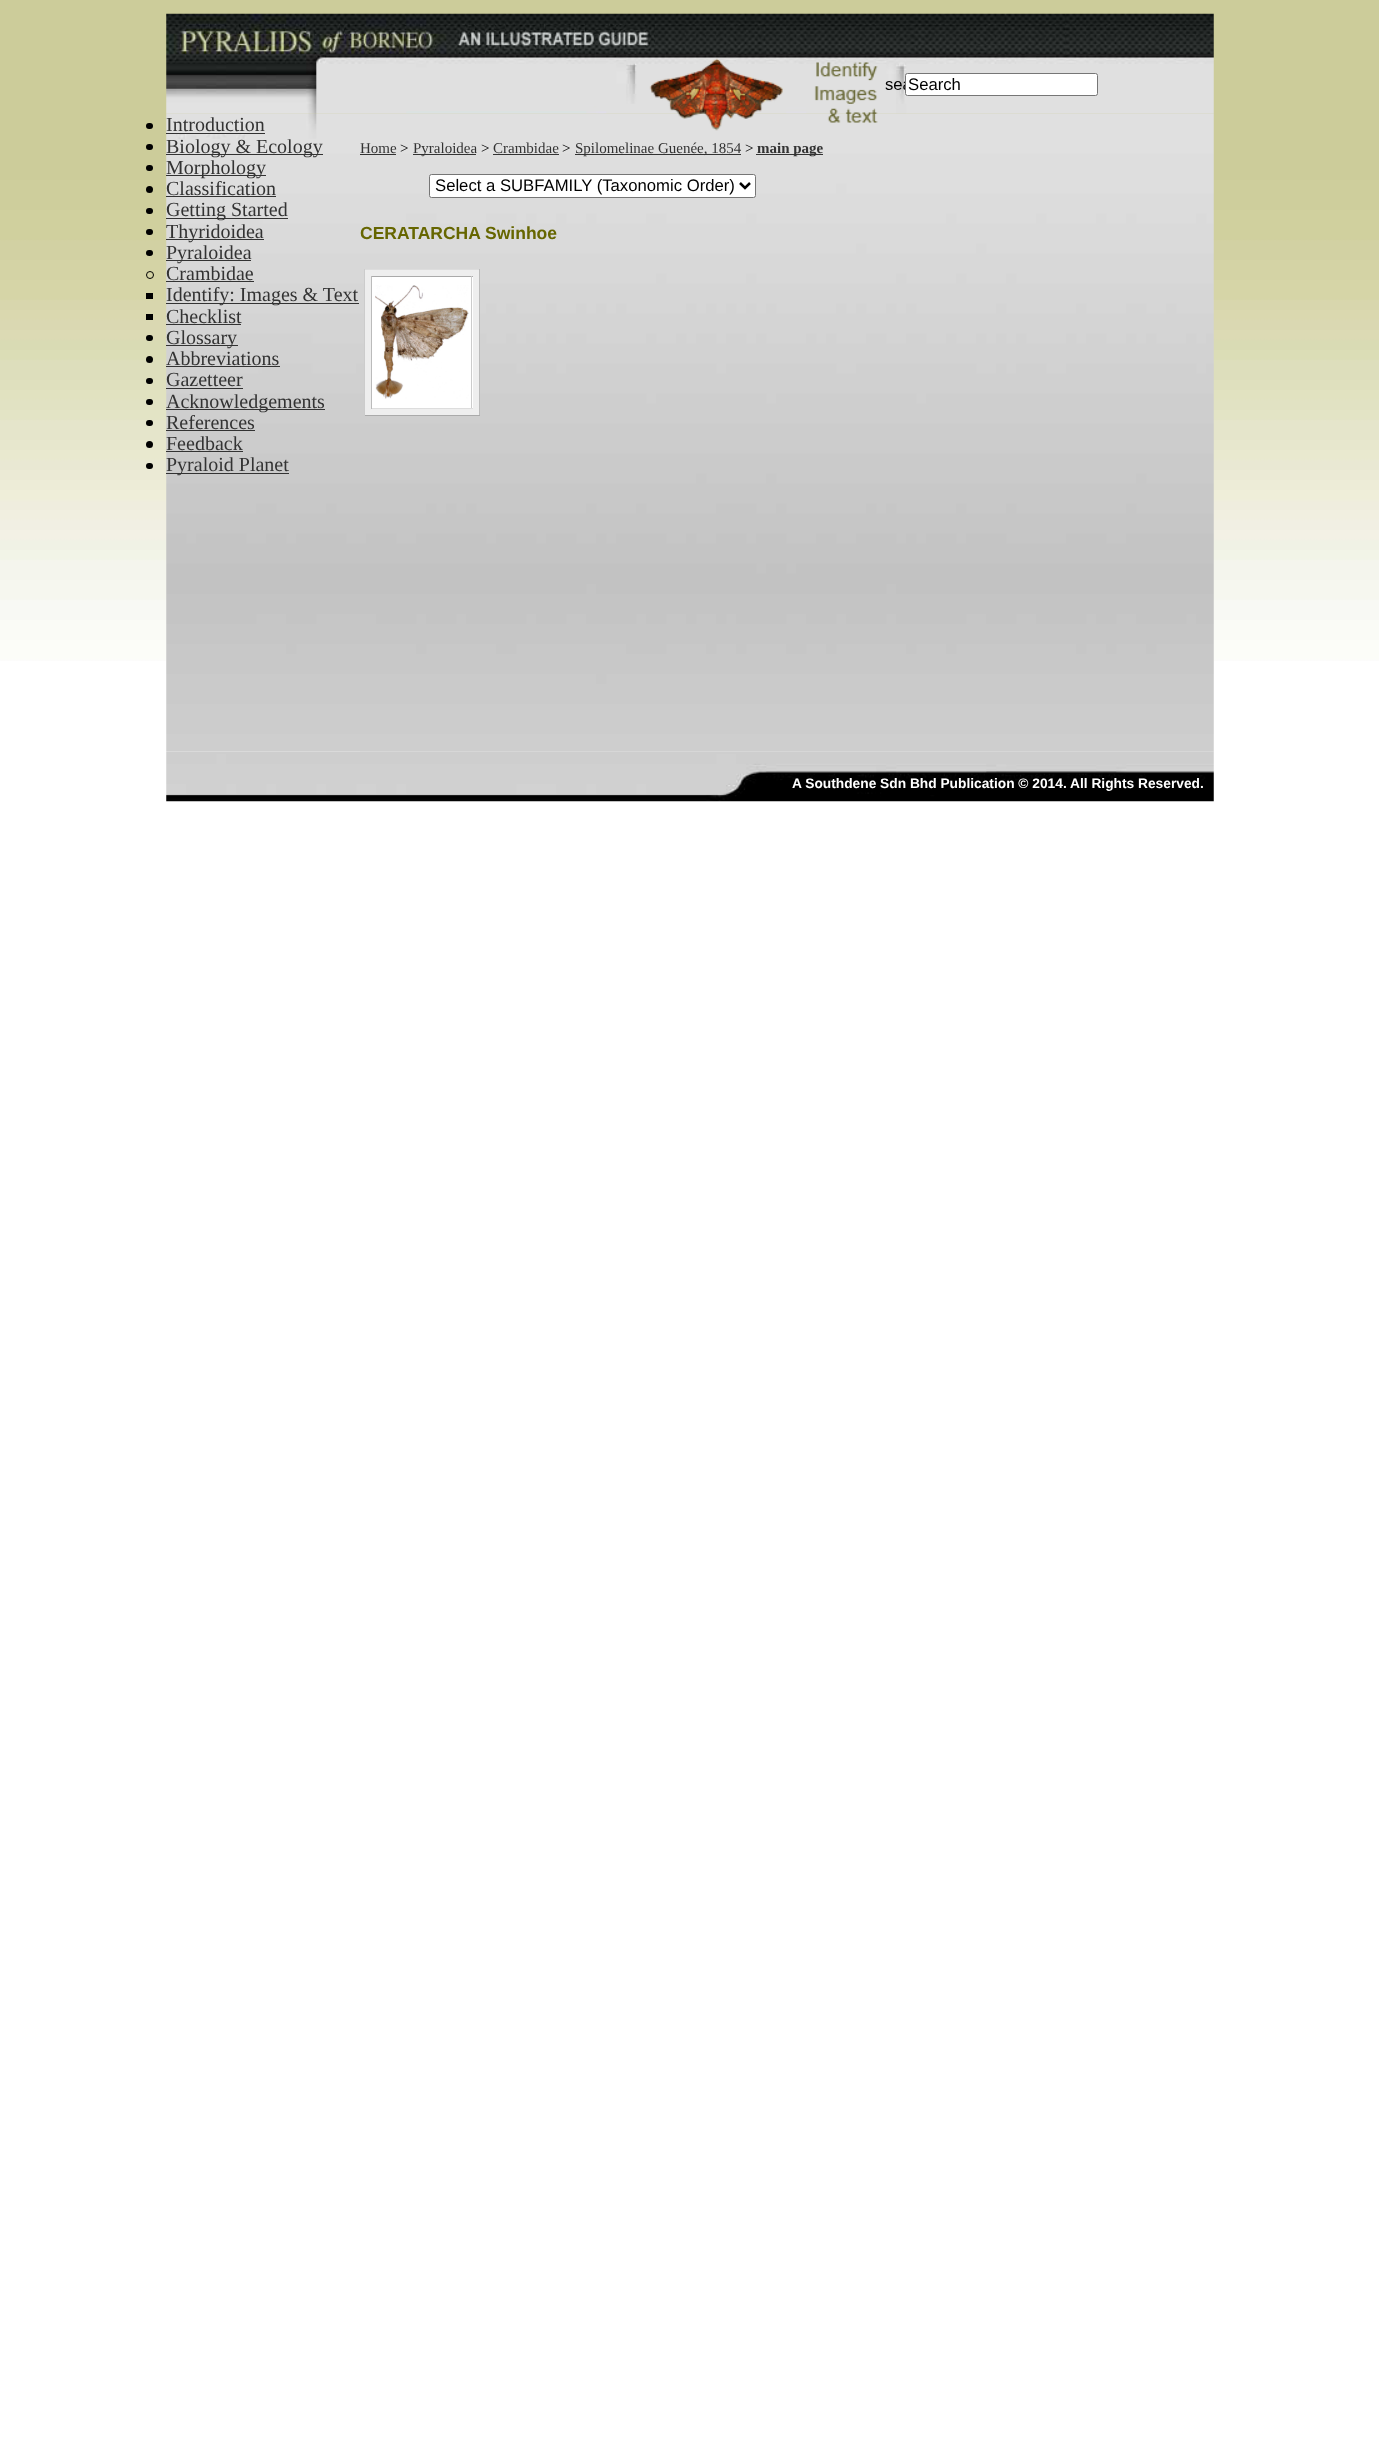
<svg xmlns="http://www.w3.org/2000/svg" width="1379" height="2455">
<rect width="100%" height="100%" fill="#fff"/>
<image x="0" y="0" width="1379" height="661" href="media/1.png"/>
<image x="166" y="13" width="1048" height="101" href="media/2.png"/>
<image x="360" y="113" width="854" height="639" href="media/6.png"/>
<image x="649" y="58" width="229" height="73" href="media/3.png"/>
<image x="885" y="81" width="20" height="9" href="media/4.png"/>
<rect x="905.5" y="73.5" width="192" height="22" rx="2" fill="#fff" stroke="#767676"/>
<text x="908" y="90" style="font-family:Liberation Sans;font-size:16.7px;fill:#000">Search</text>
<image x="166" y="113" width="194" height="638" href="media/5.png"/>
<rect x="146" y="123" width="7" height="6" rx="3" fill="#000"/>
<text x="166" y="131" style="font-family:Liberation Serif;font-size:20px;fill:#333">Introduction</text>
<rect x="166" y="133" width="99" height="1" fill="#333"/>
<rect x="146" y="144" width="7" height="6" rx="3" fill="#000"/>
<rect x="166" y="154" width="157" height="1" fill="#333"/>
<text x="166" y="153" style="font-family:Liberation Serif;font-size:20px;fill:#333">Biology &amp; Ecology</text>
<rect x="146" y="165" width="7" height="6" rx="3" fill="#000"/>
<rect x="166" y="175" width="100" height="1" fill="#333"/>
<text x="166" y="174" style="font-family:Liberation Serif;font-size:20px;fill:#333">Morphology</text>
<circle cx="149.5" cy="189.5" r="3.5" fill="#000"/>
<text x="166" y="195" style="font-family:Liberation Serif;font-size:20px;fill:#333">Classification</text>
<rect x="166" y="196" width="110" height="1" fill="#333"/>
<rect x="146" y="208" width="7" height="6" rx="3" fill="#000"/>
<rect x="166" y="218" width="122" height="1" fill="#333"/>
<text x="166" y="216" style="font-family:Liberation Serif;font-size:20px;fill:#333">Getting Started</text>
<rect x="146" y="229" width="7" height="6" rx="3" fill="#000"/>
<rect x="166" y="239" width="98" height="1" fill="#333"/>
<text x="166" y="238" style="font-family:Liberation Serif;font-size:20px;fill:#333">Thyridoidea</text>
<rect x="146" y="250" width="7" height="6" rx="3" fill="#000"/>
<rect x="166" y="260" width="85" height="1" fill="#333"/>
<text x="166" y="259" style="font-family:Liberation Serif;font-size:20px;fill:#333">Pyraloidea</text>
<circle cx="150" cy="275" r="3.5" fill="none" stroke="#000"/>
<text x="166" y="280" style="font-family:Liberation Serif;font-size:20px;fill:#333">Crambidae</text>
<rect x="166" y="281" width="88" height="1" fill="#333"/>
<rect x="146" y="293" width="7" height="6" fill="#000"/>
<rect x="166" y="303" width="193" height="1" fill="#333"/>
<text x="166" y="301" style="font-family:Liberation Serif;font-size:20px;fill:#333">Identify: Images &amp; Text</text>
<rect x="146" y="314" width="7" height="6" fill="#000"/>
<text x="166" y="323" style="font-family:Liberation Serif;font-size:20px;fill:#333">Checklist</text>
<rect x="166" y="324" width="75" height="1" fill="#333"/>
<rect x="146" y="335" width="7" height="6" rx="3" fill="#000"/>
<rect x="166" y="345" width="72" height="1" fill="#333"/>
<text x="166" y="344" style="font-family:Liberation Serif;font-size:20px;fill:#333">Glossary</text>
<circle cx="149.5" cy="359.5" r="3.5" fill="#000"/>
<text x="166" y="365" style="font-family:Liberation Serif;font-size:20px;fill:#333">Abbreviations</text>
<rect x="166" y="366" width="114" height="1" fill="#333"/>
<rect x="146" y="378" width="7" height="6" rx="3" fill="#000"/>
<text x="166" y="386" style="font-family:Liberation Serif;font-size:20px;fill:#333">Gazetteer</text>
<rect x="166" y="388" width="77" height="1" fill="#333"/>
<rect x="146" y="399" width="7" height="6" rx="3" fill="#000"/>
<rect x="166" y="409" width="159" height="1" fill="#333"/>
<text x="166" y="408" style="font-family:Liberation Serif;font-size:20px;fill:#333">Acknowledgements</text>
<rect x="146" y="420" width="7" height="6" rx="3" fill="#000"/>
<text x="166" y="429" style="font-family:Liberation Serif;font-size:20px;fill:#333">References</text>
<rect x="166" y="430" width="89" height="1" fill="#333"/>
<circle cx="149.5" cy="444.5" r="3.5" fill="#000"/>
<text x="166" y="450" style="font-family:Liberation Serif;font-size:20px;fill:#333">Feedback</text>
<rect x="166" y="451" width="77" height="1" fill="#333"/>
<rect x="146" y="463" width="7" height="6" rx="3" fill="#000"/>
<rect x="166" y="473" width="123" height="1" fill="#333"/>
<text x="166" y="471" style="font-family:Liberation Serif;font-size:20px;fill:#333">Pyraloid Planet</text>
<text x="360" y="153" style="font-family:Liberation Serif;font-size:15px;fill:#333">Home</text>
<rect x="360" y="154" width="36" height="1" fill="#333"/>
<text x="400" y="153" style="font-family:Liberation Serif;font-size:15px;fill:#000">&gt;</text>
<rect x="413" y="154" width="63" height="1" fill="#333"/>
<text x="413" y="153" style="font-family:Liberation Serif;font-size:15px;fill:#333">Pyraloidea</text>
<text x="481" y="153" style="font-family:Liberation Serif;font-size:15px;fill:#000">&gt;</text>
<text x="493" y="153" style="font-family:Liberation Serif;font-size:15px;fill:#333">Crambidae</text>
<rect x="493" y="154" width="66" height="1" fill="#333"/>
<text x="562" y="153" style="font-family:Liberation Serif;font-size:15px;fill:#000">&gt;</text>
<rect x="575" y="154" width="166" height="1" fill="#333"/>
<text x="575" y="153" style="font-family:Liberation Serif;font-size:15px;fill:#333">Spilomelinae Guenée, 1854</text>
<text x="745" y="153" style="font-family:Liberation Serif;font-size:15px;fill:#000">&gt;</text>
<rect x="756" y="154" width="67" height="1" fill="#333"/>
<text x="757" y="153" style="font-family:Liberation Serif;font-size:15px;font-weight:bold;fill:#333">main page</text>
<rect x="429.5" y="174.5" width="326" height="23" rx="2" fill="#fff" stroke="#767676"/>
<path d="M740 183l5 5l5-5" fill="none" stroke="#000" stroke-width="2.5"/>
<text x="435" y="191" style="font-family:Liberation Sans;font-size:16.7px;fill:#000">Select a SUBFAMILY (Taxonomic Order)</text>
<text x="360" y="239" style="font-family:Liberation Sans;font-size:17.5px;font-weight:bold;fill:#660">CERATARCHA Swinhoe</text>
<rect x="365" y="270" width="114" height="145" fill="#eee"/>
<rect x="364" y="269" width="116" height="1" fill="#ddd"/>
<rect x="479" y="269" width="1" height="147" fill="#bbb"/>
<rect x="364" y="415" width="116" height="1" fill="#aaa"/>
<rect x="364" y="269" width="1" height="147" fill="#ccc"/>
<rect x="371" y="276" width="102" height="1" fill="#aaa"/>
<rect x="372" y="277" width="101" height="131" fill="#fff"/>
<rect x="471" y="276" width="1" height="133" fill="#ccc"/>
<rect x="371" y="408" width="102" height="1" fill="#ddd"/>
<rect x="371" y="276" width="1" height="133" fill="#bbb"/>
<image x="375" y="285" width="94" height="114" href="media/7.png"/>
<image x="166" y="751" width="1048" height="51" href="media/8.png"/>
<text x="792" y="788" style="font-family:Liberation Sans;font-size:13.75px;font-weight:bold;fill:#fff">A Southdene Sdn Bhd Publication © 2014. All Rights Reserved.</text>
</svg>
